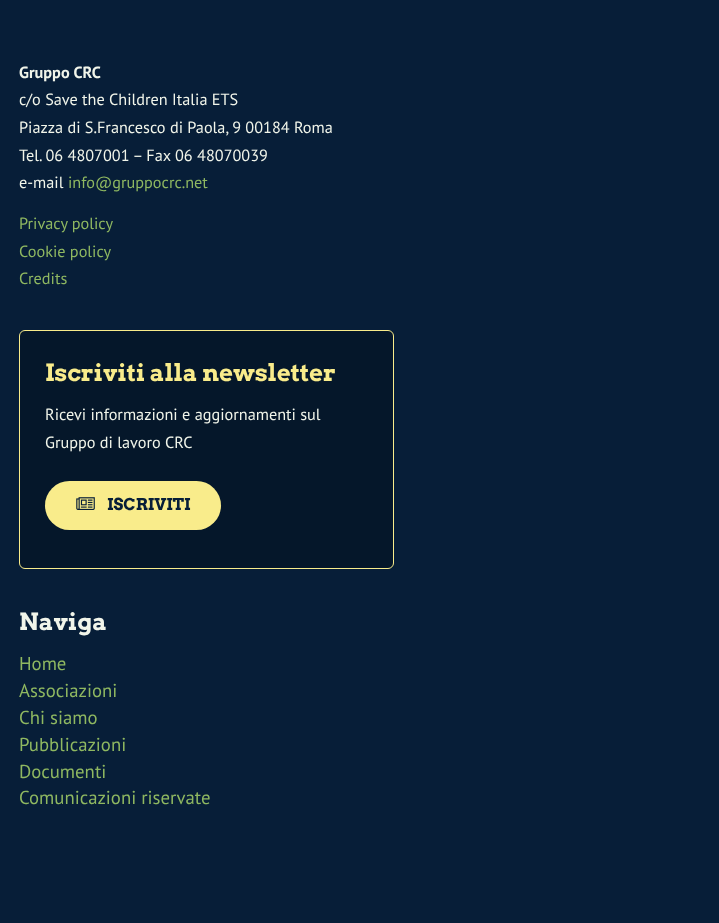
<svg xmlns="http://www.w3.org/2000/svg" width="719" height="923">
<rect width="100%" height="100%" fill="#071e38"/>
<text x="19" y="78" style="font-family:PT Sans;font-size:16.25px;font-weight:bold;fill:#f1f5ea">Gruppo CRC</text>
<text x="19" y="105" style="font-family:PT Sans;font-size:16.25px;fill:#f1f5ea">c/o Save the Children Italia ETS</text>
<text x="19" y="133" style="font-family:PT Sans;font-size:16.25px;fill:#f1f5ea">Piazza di S.Francesco di Paola, 9 00184 Roma</text>
<text x="19" y="161" style="font-family:PT Sans;font-size:16.25px;fill:#f1f5ea">Tel. 06 4807001 – Fax 06 48070039</text>
<text x="19" y="188" style="font-family:PT Sans;font-size:16.25px;fill:#f1f5ea">e-mail</text>
<text x="68" y="188" style="font-family:PT Sans;font-size:16.25px;fill:#8fb861">info@gruppocrc.net</text>
<text x="19" y="229" style="font-family:PT Sans;font-size:16.25px;fill:#8fb861">Privacy policy</text>
<text x="19" y="257" style="font-family:PT Sans;font-size:16.25px;fill:#8fb861">Cookie policy</text>
<text x="19" y="284" style="font-family:PT Sans;font-size:16.25px;fill:#8fb861">Credits</text>
<rect x="19.5" y="330.5" width="374" height="238" rx="5.5" fill="#05172a" stroke="#f9ec8b"/>
<text x="45" y="381" style="font-family:Arvo;font-size:23.75px;font-weight:bold;fill:#f9ec8b">Iscriviti alla newsletter</text>
<text x="45" y="420" style="font-family:PT Sans;font-size:16.25px;fill:#f1f5ea">Ricevi informazioni e aggiornamenti sul</text>
<text x="45" y="448" style="font-family:PT Sans;font-size:16.25px;fill:#f1f5ea">Gruppo di lavoro CRC</text>
<rect x="45" y="481" width="176" height="49" rx="24.5" fill="#f9ec8b"/>
<image x="76" y="497" width="19" height="13" href="media/1.png"/>
<text x="107" y="510" style="font-family:Arvo;font-size:16.25px;font-weight:bold;fill:#071e38">ISCRIVITI</text>
<text x="19" y="630" style="font-family:Arvo;font-size:23.75px;font-weight:bold;fill:#f1f5ea">Naviga</text>
<text x="19" y="670" style="font-family:PT Sans;font-size:18.75px;fill:#8fb861">Home</text>
<text x="19" y="697" style="font-family:PT Sans;font-size:18.75px;fill:#8fb861">Associazioni</text>
<text x="19" y="724" style="font-family:PT Sans;font-size:18.75px;fill:#8fb861">Chi siamo</text>
<text x="19" y="751" style="font-family:PT Sans;font-size:18.75px;fill:#8fb861">Pubblicazioni</text>
<text x="19" y="778" style="font-family:PT Sans;font-size:18.75px;fill:#8fb861">Documenti</text>
<text x="19" y="804" style="font-family:PT Sans;font-size:18.75px;fill:#8fb861">Comunicazioni riservate</text>
</svg>
